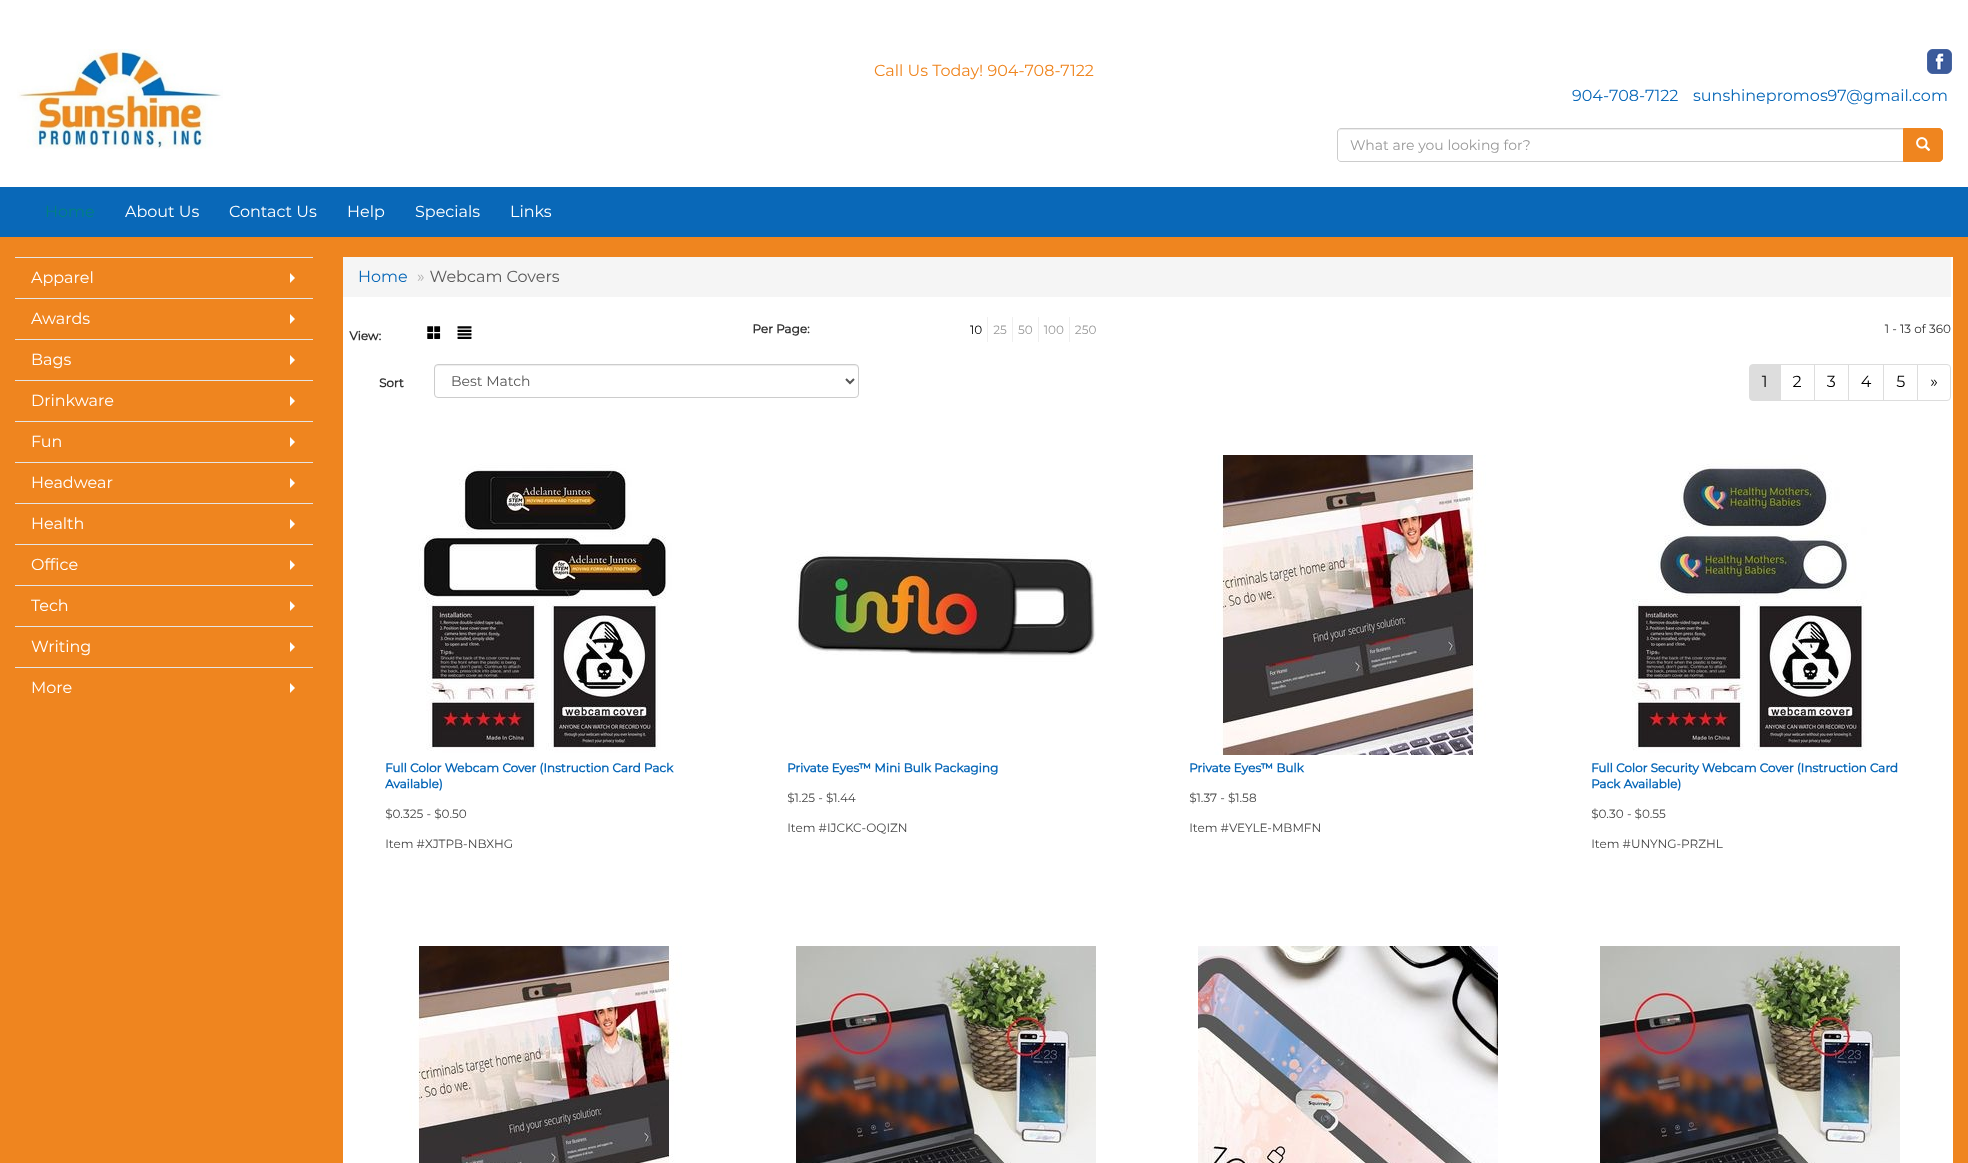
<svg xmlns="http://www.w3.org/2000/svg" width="1968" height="1163">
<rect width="100%" height="100%" fill="#ef851f"/>
<rect width="1968" height="187" fill="#fff"/>
<image x="17" y="49" width="206" height="100" href="media/1.png"/>
<text x="874" y="76" style="font-family:Montserrat;font-size:16px;font-weight:100;fill:#ef851f">Call Us Today! 904-708-7122</text>
<image x="1927" y="49" width="25" height="25" href="media/2.png"/>
<text x="1572" y="101" style="font-family:Montserrat;font-size:16px;font-weight:100;fill:#0968b8">904-708-7122</text>
<text x="1693" y="101" style="font-family:Montserrat;font-size:16px;font-weight:100;fill:#0968b8">sunshinepromos97@gmail.com</text>
<path d="M1341 130h562v-1h-562c-2 0-3 1-3 3v1c0-2 1-3 3-3z" fill="#ececec"/>
<path d="M1341 128.5h562.5v33h-562.5c-2 0-3.5-1.5-3.5-3.5v-26c0-2 1.5-3.5 3.5-3.5z" fill="none" stroke="#ccc"/>
<text x="1350" y="150" style="font-family:Montserrat;font-size:14px;font-weight:100;fill:#999">What are you looking for?</text>
<path d="M1903.5 128.5h35.5c2 0 3.5 1.5 3.5 3.5v26c0 2-1.5 3.5-3.5 3.5h-35.5z" fill="#ef851f" stroke="#ef851f"/>
<image x="1916" y="137" width="15" height="14" href="media/3.png"/>
<rect y="187" width="1968" height="50" fill="#0968b8"/>
<text x="45" y="217" style="font-family:Montserrat;font-size:16px;font-weight:100;fill:#008080">Home</text>
<text x="125" y="217" style="font-family:Montserrat;font-size:16px;font-weight:100;fill:#fff">About Us</text>
<text x="229" y="217" style="font-family:Montserrat;font-size:16px;font-weight:100;fill:#fff">Contact Us</text>
<text x="347" y="217" style="font-family:Montserrat;font-size:16px;font-weight:100;fill:#fff">Help</text>
<text x="415" y="217" style="font-family:Montserrat;font-size:16px;font-weight:100;fill:#fff">Specials</text>
<text x="510" y="217" style="font-family:Montserrat;font-size:16px;font-weight:100;fill:#fff">Links</text>
<rect x="15" y="257" width="298" height="1" fill="#e5e5e5"/>
<text x="31" y="283" style="font-family:Montserrat;font-size:16px;font-weight:100;fill:#fff">Apparel</text>
<path d="M290 283v-10l5 5z" fill="#fff"/>
<rect x="15" y="298" width="298" height="1" fill="#e5e5e5"/>
<text x="31" y="324" style="font-family:Montserrat;font-size:16px;font-weight:100;fill:#fff">Awards</text>
<path d="M290 324v-10l5 5z" fill="#fff"/>
<rect x="15" y="339" width="298" height="1" fill="#e5e5e5"/>
<text x="31" y="365" style="font-family:Montserrat;font-size:16px;font-weight:100;fill:#fff">Bags</text>
<path d="M290 365v-10l5 5z" fill="#fff"/>
<rect x="15" y="380" width="298" height="1" fill="#e5e5e5"/>
<text x="31" y="406" style="font-family:Montserrat;font-size:16px;font-weight:100;fill:#fff">Drinkware</text>
<path d="M290 406v-10l5 5z" fill="#fff"/>
<rect x="15" y="421" width="298" height="1" fill="#e5e5e5"/>
<text x="31" y="447" style="font-family:Montserrat;font-size:16px;font-weight:100;fill:#fff">Fun</text>
<path d="M290 447v-10l5 5z" fill="#fff"/>
<rect x="15" y="462" width="298" height="1" fill="#e5e5e5"/>
<text x="31" y="488" style="font-family:Montserrat;font-size:16px;font-weight:100;fill:#fff">Headwear</text>
<path d="M290 488v-10l5 5z" fill="#fff"/>
<rect x="15" y="503" width="298" height="1" fill="#e5e5e5"/>
<text x="31" y="529" style="font-family:Montserrat;font-size:16px;font-weight:100;fill:#fff">Health</text>
<path d="M290 529v-10l5 5z" fill="#fff"/>
<rect x="15" y="544" width="298" height="1" fill="#e5e5e5"/>
<text x="31" y="570" style="font-family:Montserrat;font-size:16px;font-weight:100;fill:#fff">Office</text>
<path d="M290 570v-10l5 5z" fill="#fff"/>
<rect x="15" y="585" width="298" height="1" fill="#e5e5e5"/>
<text x="31" y="611" style="font-family:Montserrat;font-size:16px;font-weight:100;fill:#fff">Tech</text>
<path d="M290 611v-10l5 5z" fill="#fff"/>
<rect x="15" y="626" width="298" height="1" fill="#e5e5e5"/>
<text x="31" y="652" style="font-family:Montserrat;font-size:16px;font-weight:100;fill:#fff">Writing</text>
<path d="M290 652v-10l5 5z" fill="#fff"/>
<rect x="15" y="667" width="298" height="1" fill="#e5e5e5"/>
<text x="31" y="693" style="font-family:Montserrat;font-size:16px;font-weight:100;fill:#fff">More</text>
<path d="M290 693v-10l5 5z" fill="#fff"/>
<image x="343" y="257" width="1610" height="906" href="media/4.png"/>
</svg>
